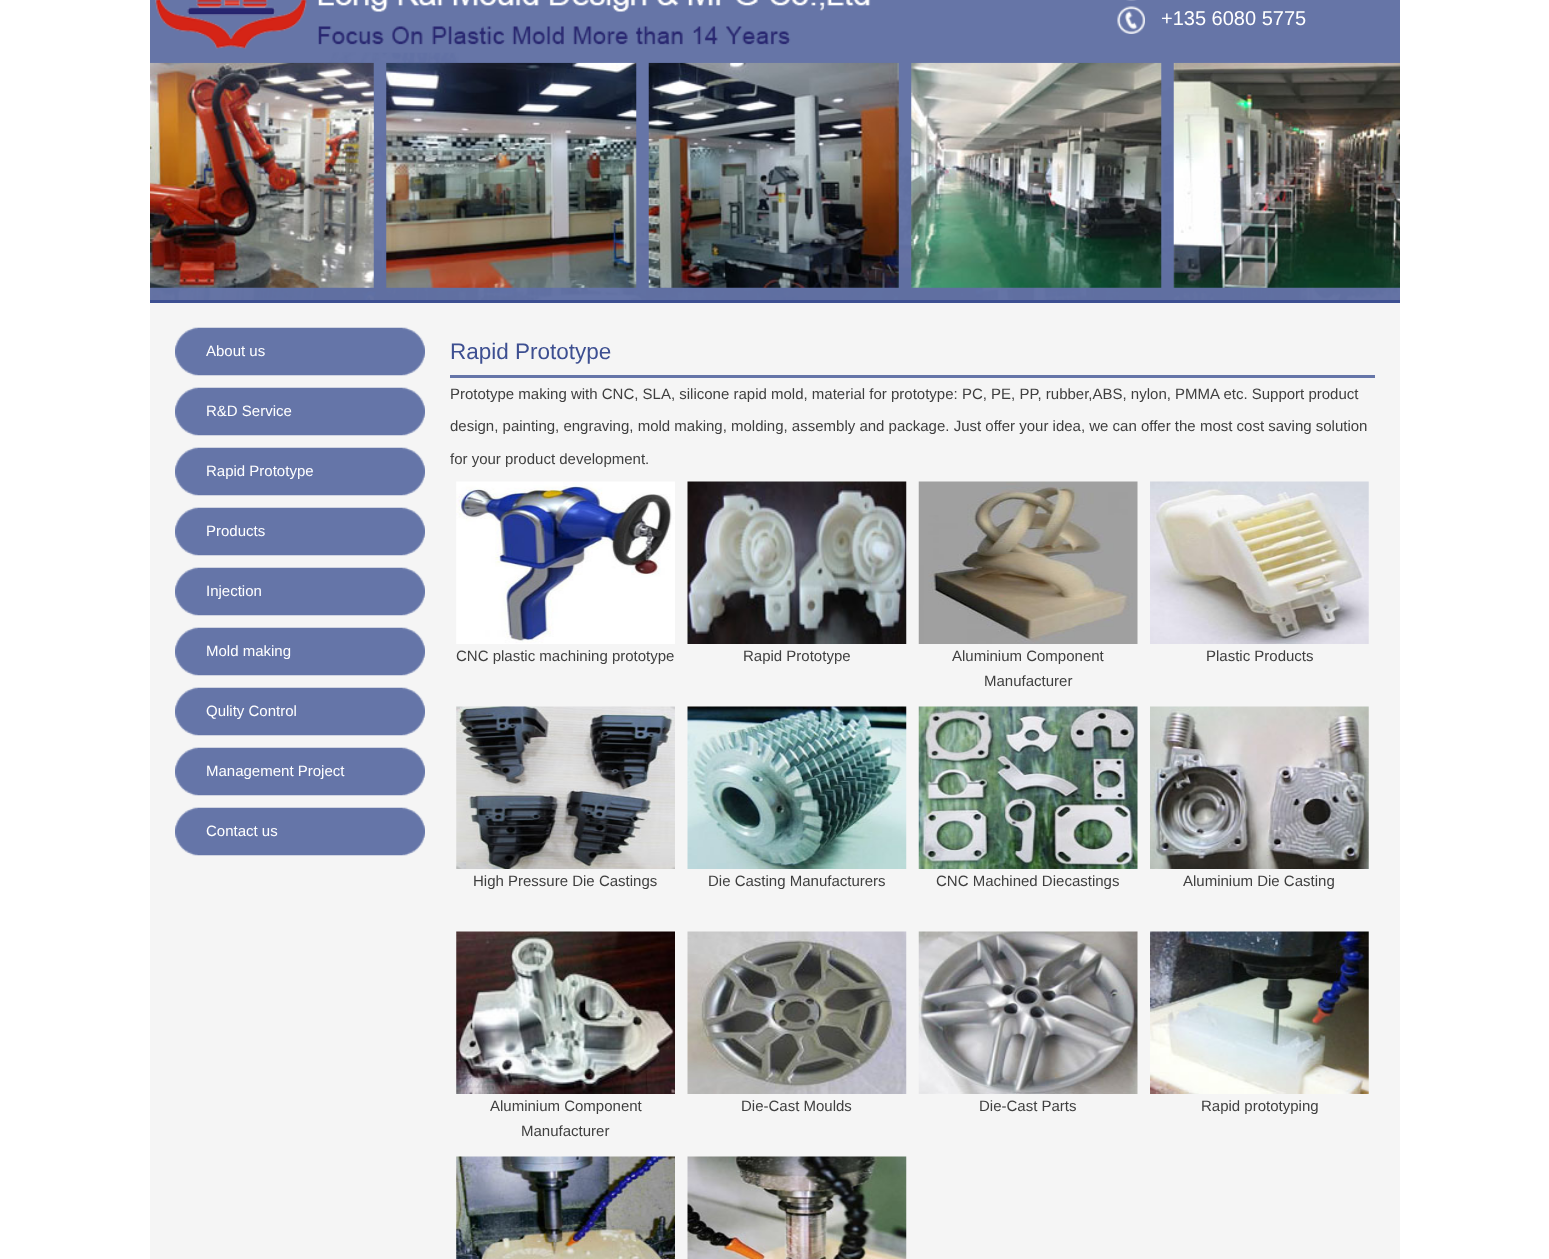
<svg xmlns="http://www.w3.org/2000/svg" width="1549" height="1259">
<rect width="100%" height="100%" fill="#fff"/>
<image x="150" y="0" width="1250" height="300" href="media/1.png"/>
<rect x="150" y="300" width="1250" height="3" fill="#3d4f91"/>
<image x="1126" y="0" width="11" height="1" href="media/2.png"/>
<image x="1117" y="6" width="28" height="28" href="media/3.png"/>
<text x="1161" y="25" style="font-family:Liberation Sans;font-size:20px;fill:#fff">+135 6080 5775</text>
<image x="150" y="62" width="224" height="226" href="media/4.png"/>
<image x="386" y="62" width="251" height="226" href="media/5.png"/>
<image x="648" y="62" width="251" height="226" href="media/6.png"/>
<image x="911" y="62" width="251" height="226" href="media/7.png"/>
<image x="1173" y="62" width="227" height="226" href="media/8.png"/>
<rect x="150" y="303" width="1250" height="956" fill="#f5f5f5"/>
<image x="175" y="327" width="250" height="49" href="media/9.png"/>
<text x="206" y="356" style="font-family:Liberation Sans;font-size:15px;fill:#fff">About us</text>
<image x="175" y="387" width="250" height="49" href="media/9.png"/>
<text x="206" y="416" style="font-family:Liberation Sans;font-size:15px;fill:#fff">R&amp;D Service</text>
<image x="175" y="447" width="250" height="49" href="media/9.png"/>
<text x="206" y="476" style="font-family:Liberation Sans;font-size:15px;fill:#fff">Rapid Prototype</text>
<image x="175" y="507" width="250" height="49" href="media/10.png"/>
<text x="206" y="536" style="font-family:Liberation Sans;font-size:15px;fill:#fff">Products</text>
<image x="175" y="567" width="250" height="49" href="media/9.png"/>
<text x="206" y="596" style="font-family:Liberation Sans;font-size:15px;fill:#fff">Injection</text>
<image x="175" y="627" width="250" height="49" href="media/9.png"/>
<text x="206" y="656" style="font-family:Liberation Sans;font-size:15px;fill:#fff">Mold making</text>
<image x="175" y="687" width="250" height="49" href="media/9.png"/>
<text x="206" y="716" style="font-family:Liberation Sans;font-size:15px;fill:#fff">Qulity Control</text>
<image x="175" y="747" width="250" height="49" href="media/9.png"/>
<text x="206" y="776" style="font-family:Liberation Sans;font-size:15px;fill:#fff">Management Project</text>
<image x="175" y="807" width="250" height="49" href="media/9.png"/>
<text x="206" y="836" style="font-family:Liberation Sans;font-size:15px;fill:#fff">Contact us</text>
<rect x="450" y="375" width="925" height="3" fill="#6575a8"/>
<text x="450" y="359" style="font-family:Liberation Sans;font-size:22.5px;fill:#3d4f91">Rapid Prototype</text>
<text x="450" y="399" style="font-family:Liberation Sans;font-size:15px;fill:#3f3f3f">Prototype making with CNC, SLA, silicone rapid mold, material for prototype: PC, PE, PP, rubber,ABS, nylon, PMMA etc. Support product</text>
<text x="450" y="431" style="font-family:Liberation Sans;font-size:15px;fill:#3f3f3f">design, painting, engraving, mold making, molding, assembly and package. Just offer your idea, we can offer the most cost saving solution</text>
<text x="450" y="464" style="font-family:Liberation Sans;font-size:15px;fill:#3f3f3f">for your product development.</text>
<image x="456" y="481" width="219" height="163" href="media/11.png"/>
<text x="456" y="661" style="font-family:Liberation Sans;font-size:15px;fill:#3f3f3f">CNC plastic machining prototype</text>
<image x="687" y="481" width="220" height="163" href="media/12.png"/>
<text x="743" y="661" style="font-family:Liberation Sans;font-size:15px;fill:#3f3f3f">Rapid Prototype</text>
<image x="918" y="481" width="220" height="163" href="media/13.png"/>
<text x="952" y="661" style="font-family:Liberation Sans;font-size:15px;fill:#3f3f3f">Aluminium Component</text>
<text x="984" y="686" style="font-family:Liberation Sans;font-size:15px;fill:#3f3f3f">Manufacturer</text>
<image x="1150" y="481" width="219" height="163" href="media/14.png"/>
<text x="1206" y="661" style="font-family:Liberation Sans;font-size:15px;fill:#3f3f3f">Plastic Products</text>
<image x="456" y="706" width="219" height="163" href="media/15.png"/>
<text x="473" y="886" style="font-family:Liberation Sans;font-size:15px;fill:#3f3f3f">High Pressure Die Castings</text>
<image x="687" y="706" width="220" height="163" href="media/16.png"/>
<text x="708" y="886" style="font-family:Liberation Sans;font-size:15px;fill:#3f3f3f">Die Casting Manufacturers</text>
<image x="918" y="706" width="220" height="163" href="media/17.png"/>
<text x="936" y="886" style="font-family:Liberation Sans;font-size:15px;fill:#3f3f3f">CNC Machined Diecastings</text>
<image x="1150" y="706" width="219" height="163" href="media/18.png"/>
<text x="1183" y="886" style="font-family:Liberation Sans;font-size:15px;fill:#3f3f3f">Aluminium Die Casting</text>
<image x="456" y="931" width="219" height="163" href="media/19.png"/>
<text x="490" y="1111" style="font-family:Liberation Sans;font-size:15px;fill:#3f3f3f">Aluminium Component</text>
<text x="521" y="1136" style="font-family:Liberation Sans;font-size:15px;fill:#3f3f3f">Manufacturer</text>
<image x="687" y="931" width="220" height="163" href="media/20.png"/>
<text x="741" y="1111" style="font-family:Liberation Sans;font-size:15px;fill:#3f3f3f">Die-Cast Moulds</text>
<image x="918" y="931" width="220" height="163" href="media/21.png"/>
<text x="979" y="1111" style="font-family:Liberation Sans;font-size:15px;fill:#3f3f3f">Die-Cast Parts</text>
<image x="1150" y="931" width="219" height="163" href="media/22.png"/>
<text x="1201" y="1111" style="font-family:Liberation Sans;font-size:15px;fill:#3f3f3f">Rapid prototyping</text>
<image x="456" y="1156" width="219" height="103" href="media/23.png"/>
<image x="687" y="1156" width="220" height="103" href="media/24.png"/>
</svg>
